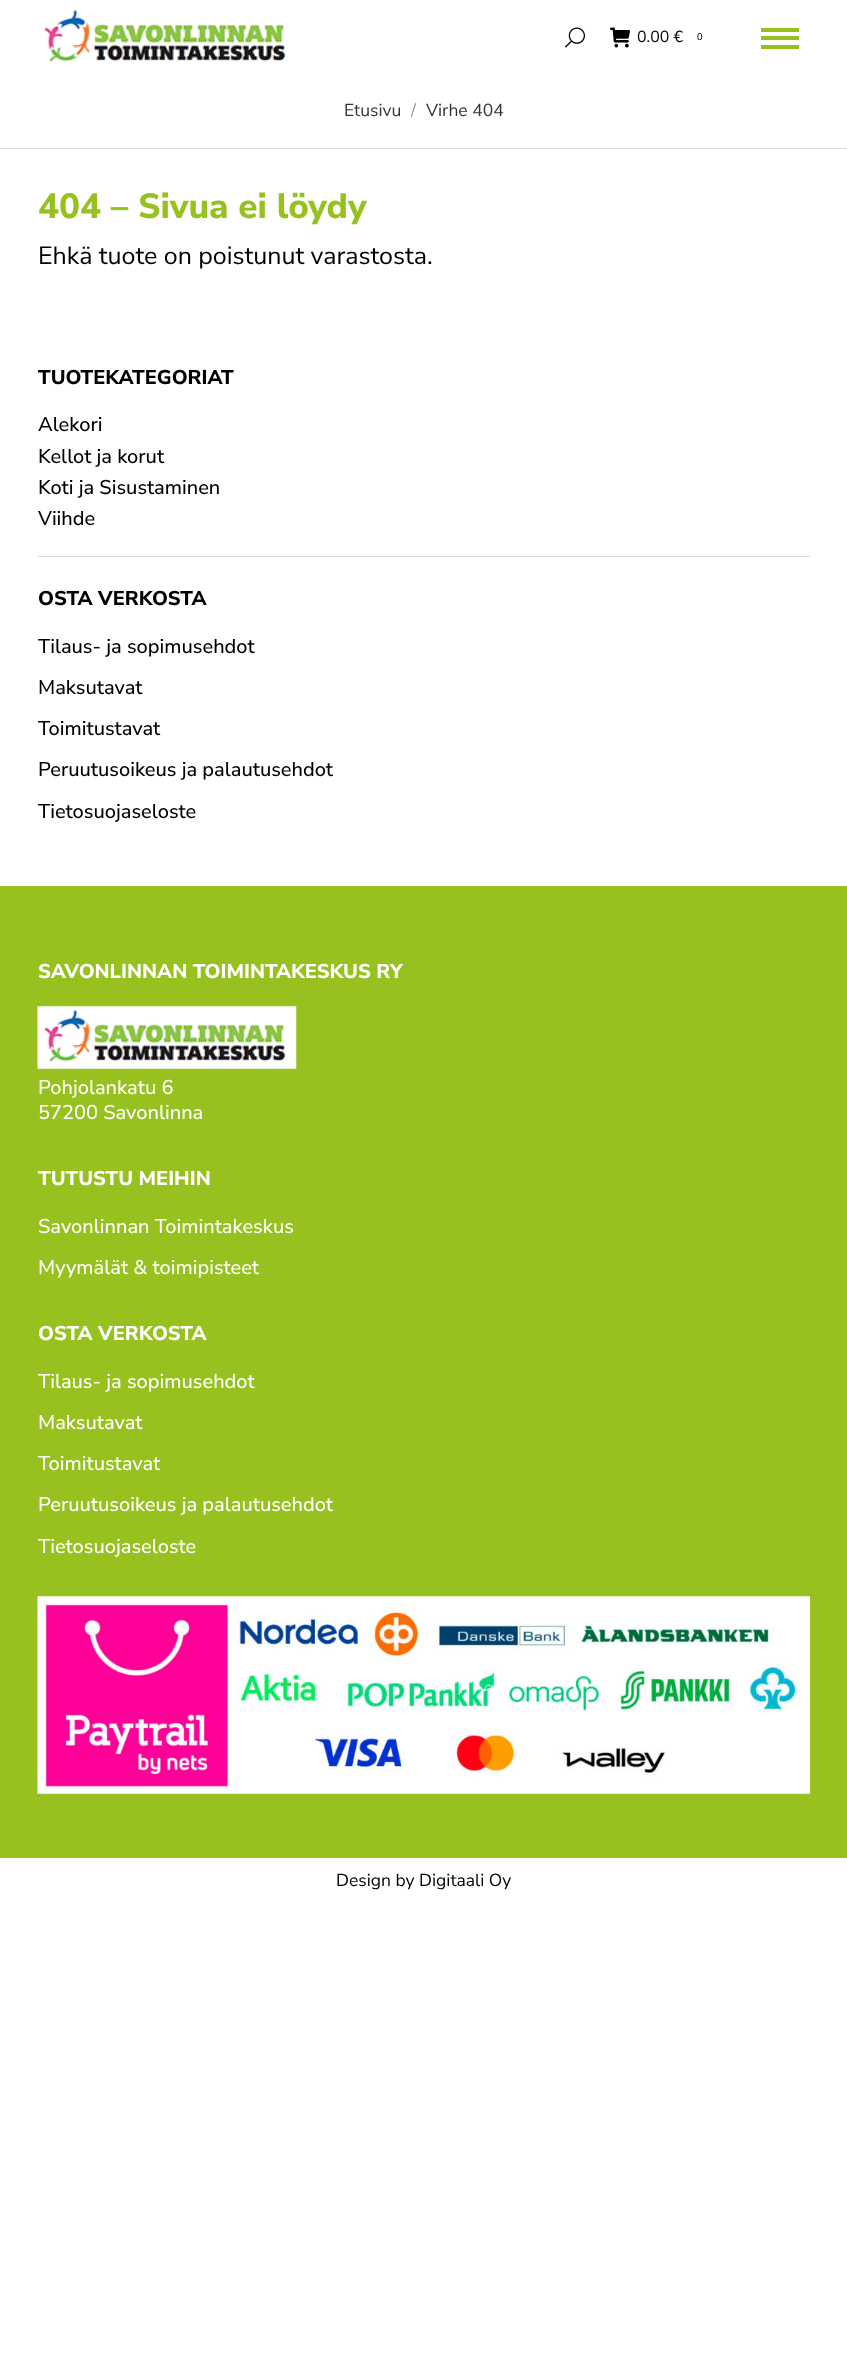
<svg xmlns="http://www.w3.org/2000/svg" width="847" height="2362">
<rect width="100%" height="100%" fill="#fff"/>
<image x="44" y="9" width="242" height="53" href="media/1.png"/>
<image x="565" y="27" width="20" height="21" href="media/2.png"/>
<image x="610" y="27" width="20" height="21" href="media/3.png"/>
<text x="637" y="42" style="font-family:Nunito Sans;font-size:16px;fill:#000">0.00 €</text>
<text x="697" y="40" style="font-family:Liberation Sans;font-size:10px;fill:#000">0</text>
<rect x="761" y="28" width="38" height="4" fill="#96c11f"/>
<rect x="761" y="36" width="38" height="4" fill="#96c11f"/>
<rect x="761" y="45" width="38" height="4" fill="#96c11f"/>
<rect y="148" width="847" height="1" fill="#e0e0e0"/>
<text x="344" y="116" style="font-family:Nunito Sans;font-size:17.5px;fill:#333">Etusivu</text>
<text x="411" y="116" style="font-family:Nunito Sans;font-size:17.5px;fill:#999">/</text>
<text x="426" y="116" style="font-family:Nunito Sans;font-size:17.5px;fill:#333">Virhe 404</text>
<text x="38" y="218" style="font-family:Nunito Sans;font-size:35px;font-weight:800;fill:#96c11f">404 – Sivua ei löydy</text>
<text x="38" y="264" style="font-family:Nunito Sans;font-size:25px;fill:#000">Ehkä tuote on poistunut varastosta.</text>
<text x="38" y="384" style="font-family:Nunito Sans;font-size:20px;font-weight:800;fill:#000">TUOTEKATEGORIAT</text>
<text x="38" y="431" style="font-family:Nunito Sans;font-size:20px;font-weight:500;fill:#000">Alekori</text>
<text x="38" y="463" style="font-family:Nunito Sans;font-size:20px;font-weight:500;fill:#000">Kellot ja korut</text>
<text x="38" y="494" style="font-family:Nunito Sans;font-size:20px;font-weight:500;fill:#000">Koti ja Sisustaminen</text>
<text x="38" y="525" style="font-family:Nunito Sans;font-size:20px;font-weight:500;fill:#000">Viihde</text>
<rect x="38" y="556" width="772" height="1" fill="#d5dade"/>
<text x="38" y="605" style="font-family:Nunito Sans;font-size:20px;font-weight:800;fill:#000">OSTA VERKOSTA</text>
<text x="38" y="653" style="font-family:Nunito Sans;font-size:20px;font-weight:500;fill:#000">Tilaus- ja sopimusehdot</text>
<text x="38" y="694" style="font-family:Nunito Sans;font-size:20px;font-weight:500;fill:#000">Maksutavat</text>
<text x="38" y="735" style="font-family:Nunito Sans;font-size:20px;font-weight:500;fill:#000">Toimitustavat</text>
<text x="38" y="776" style="font-family:Nunito Sans;font-size:20px;font-weight:500;fill:#000">Peruutusoikeus ja palautusehdot</text>
<text x="38" y="818" style="font-family:Nunito Sans;font-size:20px;font-weight:500;fill:#000">Tietosuojaseloste</text>
<rect y="886" width="847" height="972" fill="#96c11f"/>
<text x="38" y="978" style="font-family:Nunito Sans;font-size:20px;font-weight:800;fill:#fff">SAVONLINNAN TOIMINTAKESKUS RY</text>
<image x="37" y="1006" width="260" height="63" href="media/4.png"/>
<text x="38" y="1094" style="font-family:Nunito Sans;font-size:20px;font-weight:500;fill:#fff">Pohjolankatu 6</text>
<text x="38" y="1119" style="font-family:Nunito Sans;font-size:20px;font-weight:500;fill:#fff">57200 Savonlinna</text>
<text x="38" y="1185" style="font-family:Nunito Sans;font-size:20px;font-weight:800;fill:#fff">TUTUSTU MEIHIN</text>
<text x="38" y="1233" style="font-family:Nunito Sans;font-size:20px;font-weight:500;fill:#fff">Savonlinnan Toimintakeskus</text>
<text x="38" y="1274" style="font-family:Nunito Sans;font-size:20px;font-weight:500;fill:#fff">Myymälät &amp; toimipisteet</text>
<text x="38" y="1340" style="font-family:Nunito Sans;font-size:20px;font-weight:800;fill:#fff">OSTA VERKOSTA</text>
<text x="38" y="1388" style="font-family:Nunito Sans;font-size:20px;font-weight:500;fill:#fff">Tilaus- ja sopimusehdot</text>
<text x="38" y="1429" style="font-family:Nunito Sans;font-size:20px;font-weight:500;fill:#fff">Maksutavat</text>
<text x="38" y="1470" style="font-family:Nunito Sans;font-size:20px;font-weight:500;fill:#fff">Toimitustavat</text>
<text x="38" y="1511" style="font-family:Nunito Sans;font-size:20px;font-weight:500;fill:#fff">Peruutusoikeus ja palautusehdot</text>
<text x="38" y="1553" style="font-family:Nunito Sans;font-size:20px;font-weight:500;fill:#fff">Tietosuojaseloste</text>
<image x="37" y="1596" width="773" height="198" href="media/5.png"/>
<text x="336" y="1886" style="font-family:Nunito Sans;font-size:17.5px;fill:#000">Design by Digitaali Oy</text>
</svg>
